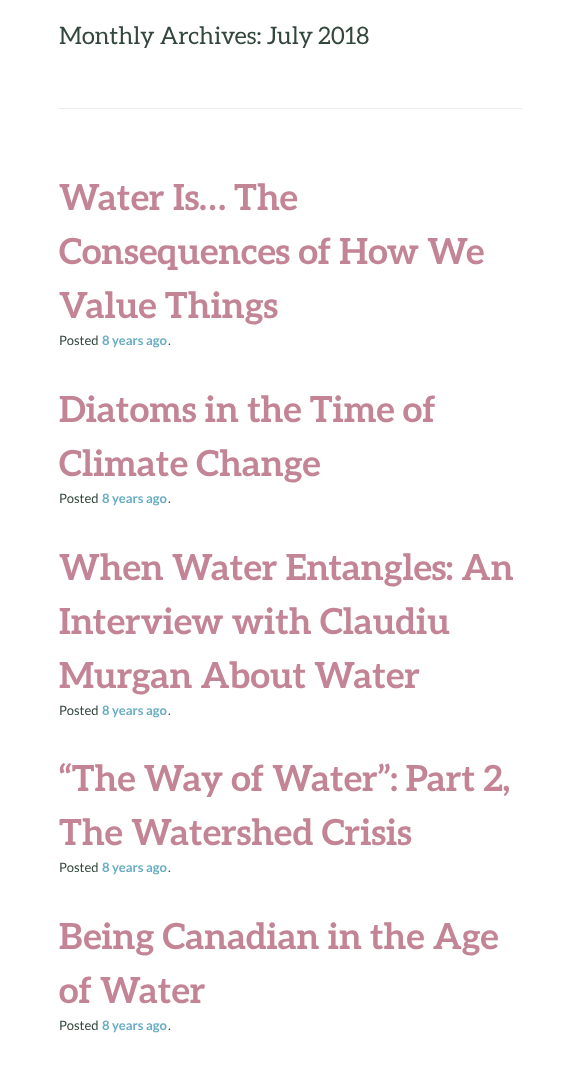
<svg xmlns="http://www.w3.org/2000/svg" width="581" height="1086">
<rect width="100%" height="100%" fill="#fff"/>
<text x="59" y="44" style="font-family:Aleo;font-size:24px;fill:#33473d">Monthly Archives: July 2018</text>
<rect x="59" y="108" width="463" height="1" fill="#ebedec"/>
<text x="59" y="210" style="font-family:Aleo;font-size:36px;font-weight:bold;fill:#c38596">Water Is… The</text>
<text x="59" y="264" style="font-family:Aleo;font-size:36px;font-weight:bold;fill:#c38596">Consequences of How We</text>
<text x="59" y="318" style="font-family:Aleo;font-size:36px;font-weight:bold;fill:#c38596">Value Things</text>
<text x="59" y="345" style="font-family:Lato;font-size:13px;fill:#33473d">Posted</text>
<text x="102" y="345" style="font-family:Lato;font-size:13px;font-weight:bold;fill:#68adc3">8 years ago</text>
<text x="168" y="345" style="font-family:Lato;font-size:13px;fill:#33473d">.</text>
<text x="59" y="422" style="font-family:Aleo;font-size:36px;font-weight:bold;fill:#c38596">Diatoms in the Time of</text>
<text x="59" y="476" style="font-family:Aleo;font-size:36px;font-weight:bold;fill:#c38596">Climate Change</text>
<text x="59" y="503" style="font-family:Lato;font-size:13px;fill:#33473d">Posted</text>
<text x="102" y="503" style="font-family:Lato;font-size:13px;font-weight:bold;fill:#68adc3">8 years ago</text>
<text x="168" y="503" style="font-family:Lato;font-size:13px;fill:#33473d">.</text>
<text x="59" y="580" style="font-family:Aleo;font-size:36px;font-weight:bold;fill:#c38596">When Water Entangles: An</text>
<text x="59" y="634" style="font-family:Aleo;font-size:36px;font-weight:bold;fill:#c38596">Interview with Claudiu</text>
<text x="59" y="688" style="font-family:Aleo;font-size:36px;font-weight:bold;fill:#c38596">Murgan About Water</text>
<text x="59" y="715" style="font-family:Lato;font-size:13px;fill:#33473d">Posted</text>
<text x="102" y="715" style="font-family:Lato;font-size:13px;font-weight:bold;fill:#68adc3">8 years ago</text>
<text x="168" y="715" style="font-family:Lato;font-size:13px;fill:#33473d">.</text>
<text x="59" y="791" style="font-family:Aleo;font-size:36px;font-weight:bold;fill:#c38596">“The Way of Water”: Part 2,</text>
<text x="59" y="845" style="font-family:Aleo;font-size:36px;font-weight:bold;fill:#c38596">The Watershed Crisis</text>
<text x="59" y="872" style="font-family:Lato;font-size:13px;fill:#33473d">Posted</text>
<text x="102" y="872" style="font-family:Lato;font-size:13px;font-weight:bold;fill:#68adc3">8 years ago</text>
<text x="168" y="872" style="font-family:Lato;font-size:13px;fill:#33473d">.</text>
<text x="59" y="949" style="font-family:Aleo;font-size:36px;font-weight:bold;fill:#c38596">Being Canadian in the Age</text>
<text x="59" y="1003" style="font-family:Aleo;font-size:36px;font-weight:bold;fill:#c38596">of Water</text>
<text x="59" y="1030" style="font-family:Lato;font-size:13px;fill:#33473d">Posted</text>
<text x="102" y="1030" style="font-family:Lato;font-size:13px;font-weight:bold;fill:#68adc3">8 years ago</text>
<text x="168" y="1030" style="font-family:Lato;font-size:13px;fill:#33473d">.</text>
</svg>
